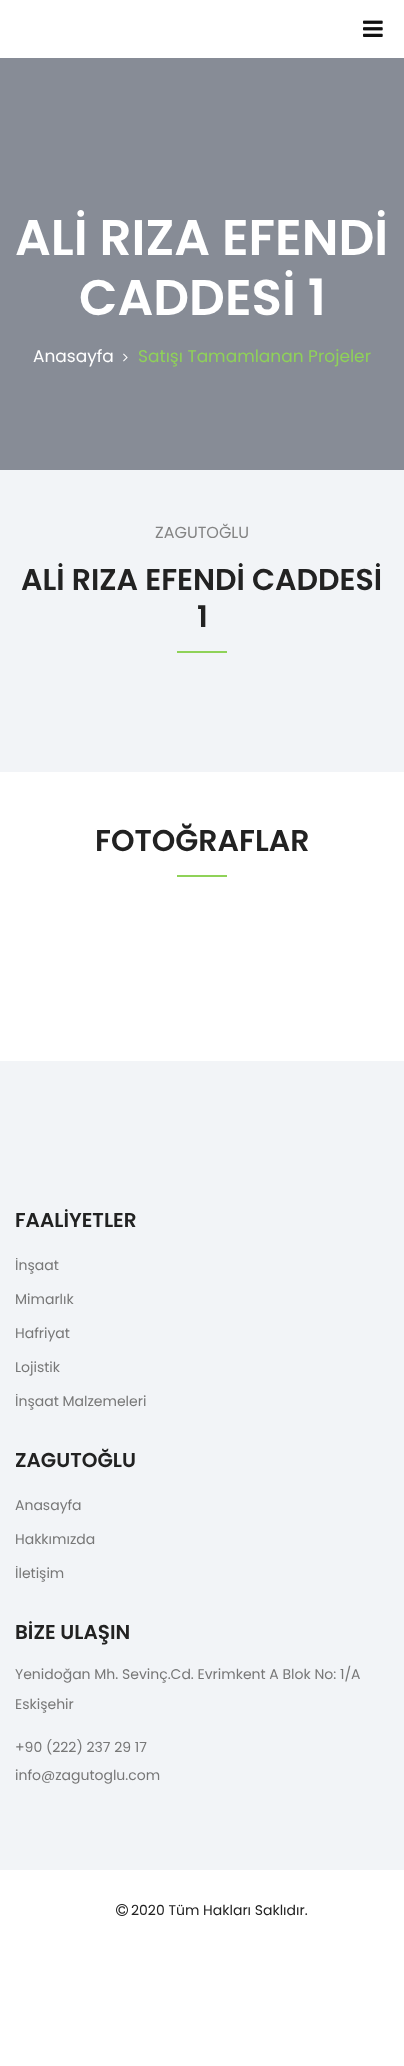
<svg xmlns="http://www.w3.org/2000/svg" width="404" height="2066">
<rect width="100%" height="100%" fill="#fff"/>
<image x="363" y="20" width="20" height="17" href="media/1.png"/>
<rect y="58" width="404" height="412" fill="#878c96"/>
<text x="15" y="255" style="font-family:Poppins;font-size:50px;font-weight:600;fill:#fff">ALİ RIZA EFENDİ</text>
<text x="79" y="315" style="font-family:Poppins;font-size:50px;font-weight:600;fill:#fff">CADDESİ 1</text>
<text x="33" y="362" style="font-family:Poppins;font-size:17px;fill:#fff">Anasayfa</text>
<image x="123" y="353" width="5" height="9" href="media/2.png"/>
<text x="138" y="362" style="font-family:Poppins;font-size:17px;fill:#8fd258">Satışı Tamamlanan Projeler</text>
<rect y="470" width="404" height="302" fill="#f2f4f7"/>
<text x="155" y="538" style="font-family:Poppins;font-size:16px;fill:#848484">ZAGUTOĞLU</text>
<text x="21" y="590" style="font-family:Poppins;font-size:30px;font-weight:600;fill:#222">ALİ RIZA EFENDİ CADDESİ</text>
<text x="197" y="627" style="font-family:Poppins;font-size:30px;font-weight:600;fill:#222">1</text>
<rect x="177" y="651" width="50" height="2" fill="#8fd258"/>
<text x="95" y="851" style="font-family:Poppins;font-size:30px;font-weight:600;fill:#222">FOTOĞRAFLAR</text>
<rect x="177" y="875" width="50" height="2" fill="#8fd258"/>
<rect y="1061" width="404" height="809" fill="#f2f4f7"/>
<text x="15" y="1227" style="font-family:Poppins;font-size:20px;font-weight:600;fill:#222">FAALİYETLER</text>
<text x="15" y="1270" style="font-family:Poppins;font-size:14px;fill:#777">İnşaat</text>
<text x="15" y="1304" style="font-family:Poppins;font-size:14px;fill:#777">Mimarlık</text>
<text x="15" y="1338" style="font-family:Poppins;font-size:14px;fill:#777">Hafriyat</text>
<text x="15" y="1372" style="font-family:Poppins;font-size:14px;fill:#777">Lojistik</text>
<text x="15" y="1406" style="font-family:Poppins;font-size:14px;fill:#777">İnşaat Malzemeleri</text>
<text x="15" y="1467" style="font-family:Poppins;font-size:20px;font-weight:600;fill:#222">ZAGUTOĞLU</text>
<text x="15" y="1510" style="font-family:Poppins;font-size:14px;fill:#777">Anasayfa</text>
<text x="15" y="1544" style="font-family:Poppins;font-size:14px;fill:#777">Hakkımızda</text>
<text x="15" y="1578" style="font-family:Poppins;font-size:14px;fill:#777">İletişim</text>
<text x="15" y="1639" style="font-family:Poppins;font-size:20px;font-weight:600;fill:#222">BİZE ULAŞIN</text>
<text x="15" y="1679" style="font-family:Poppins;font-size:14px;fill:#777">Yenidoğan Mh. Sevinç.Cd. Evrimkent A Blok No: 1/A</text>
<text x="15" y="1709" style="font-family:Poppins;font-size:14px;fill:#777">Eskişehir</text>
<text x="15" y="1752" style="font-family:Poppins;font-size:14px;fill:#777">+90 (222) 237 29 17</text>
<text x="15" y="1780" style="font-family:Poppins;font-size:14px;fill:#777">info@zagutoglu.com</text>
<image x="116" y="1904" width="12" height="12" href="media/3.png"/>
<text x="131" y="1915" style="font-family:Poppins;font-size:14px;fill:#222">2020 Tüm Hakları Saklıdır.</text>
</svg>
